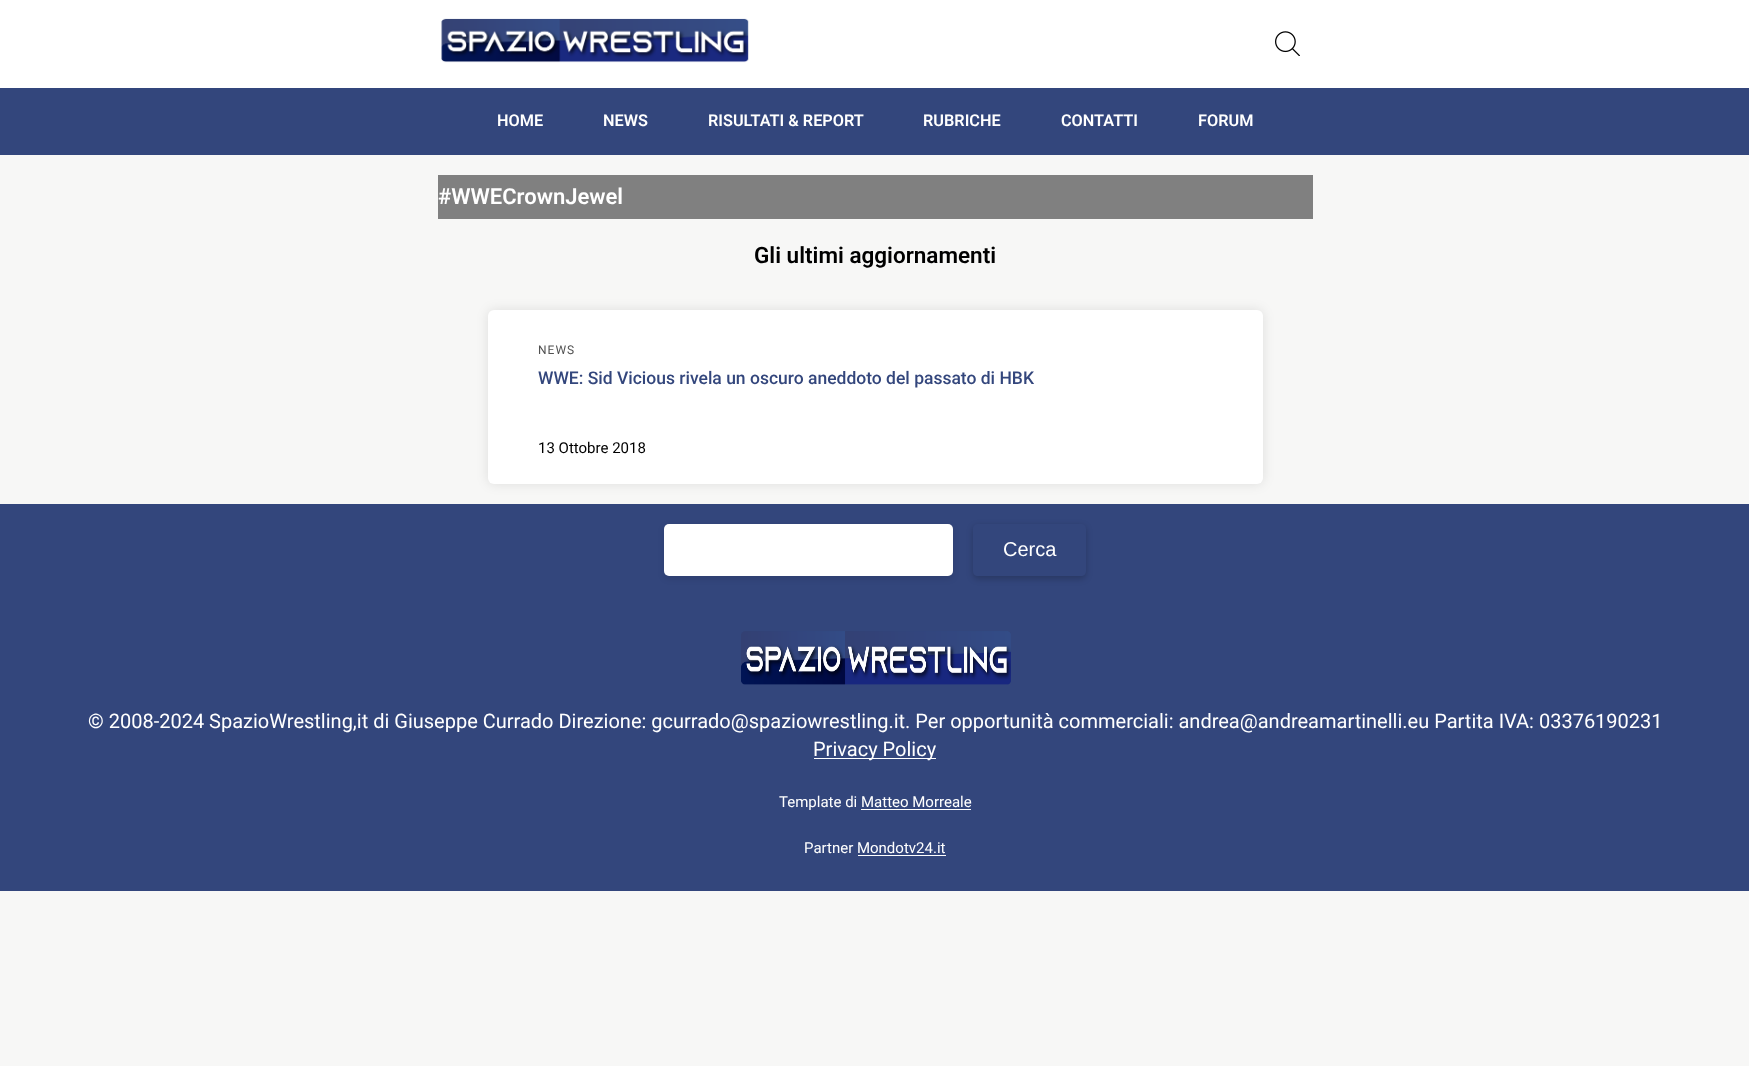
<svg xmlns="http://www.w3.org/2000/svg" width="1749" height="1066">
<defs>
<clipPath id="clip1"><path d="M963 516h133v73h-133zm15 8h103c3 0 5 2 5 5v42c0 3-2 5-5 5h-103c-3 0-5-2-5-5v-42c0-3 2-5 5-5z" clip-rule="evenodd"/></clipPath>
</defs>
<rect width="100%" height="100%" fill="#f7f7f6"/>
<rect width="1749" height="88" fill="#fff"/>
<image x="441" y="18" width="308" height="45" href="media/1.png"/>
<image x="1275" y="31" width="25" height="25" href="media/2.png"/>
<rect y="88" width="1749" height="67" fill="#33467c"/>
<text x="497" y="126" style="font-family:Roboto;font-size:16.25px;font-weight:600;fill:#fff">HOME</text>
<text x="603" y="126" style="font-family:Roboto;font-size:16.25px;font-weight:600;fill:#fff">NEWS</text>
<text x="708" y="126" style="font-family:Roboto;font-size:16.25px;font-weight:600;fill:#fff">RISULTATI &amp; REPORT</text>
<text x="923" y="126" style="font-family:Roboto;font-size:16.25px;font-weight:600;fill:#fff">RUBRICHE</text>
<text x="1061" y="126" style="font-family:Roboto;font-size:16.25px;font-weight:600;fill:#fff">CONTATTI</text>
<text x="1198" y="126" style="font-family:Roboto;font-size:16.25px;font-weight:600;fill:#fff">FORUM</text>
<rect x="438" y="175" width="875" height="44" fill="#808080"/>
<text x="438" y="204" style="font-family:Roboto;font-size:22px;font-weight:600;fill:#fff">#WWECrownJewel</text>
<text x="754" y="263" style="font-family:Roboto;font-size:22.5px;font-weight:600;fill:#000">Gli ultimi aggiornamenti</text>
<rect x="488" y="310" width="775" height="174" rx="6" fill="#0000001a" filter="blur(6px)"/>
<rect x="488" y="310" width="775" height="174" rx="6" fill="#fff"/>
<text x="538" y="354" style="font-family:Roboto;font-size:12px;letter-spacing:1px;fill:#515151">NEWS</text>
<text x="538" y="384" style="font-family:Roboto;font-size:17.5px;font-weight:500;fill:#33467c">WWE: Sid Vicious rivela un oscuro aneddoto del passato di HBK</text>
<text x="538" y="453" style="font-family:Roboto;font-size:15px;fill:#000">13 Ottobre 2018</text>
<rect y="504" width="1749" height="387" fill="#33467c"/>
<rect x="664" y="526" width="289" height="53" rx="5" fill="#0000001a" filter="blur(3px)"/>
<rect x="664" y="524" width="289" height="52" rx="5" fill="#fff"/>
<g clip-path="url(#clip1)">
<rect x="973" y="526" width="113" height="53" rx="5" fill="#00000033" filter="blur(3px)"/>
</g>
<text x="1003" y="556" style="font-family:Liberation Sans;font-size:20px;fill:#fff">Cerca</text>
<image x="741" y="631" width="270" height="54" href="media/3.png"/>
<text x="88" y="728" style="font-family:Roboto;font-size:20px;fill:#fff">© 2008-2024 SpazioWrestling,it di Giuseppe Currado Direzione: gcurrado@spaziowrestling.it. Per opportunità commerciali: andrea@andreamartinelli.eu Partita IVA: 03376190231</text>
<rect x="814" y="758" width="122" height="1" fill="#fff"/>
<text x="813" y="756" style="font-family:Roboto;font-size:20px;fill:#fff">Privacy Policy</text>
<text x="779" y="807" style="font-family:Roboto;font-size:15px;fill:#fff">Template di Matteo Morreale</text>
<rect x="861" y="809" width="110" height="1" fill="#fff"/>
<text x="804" y="853" style="font-family:Roboto;font-size:15px;fill:#fff">Partner Mondotv24.it</text>
<rect x="858" y="855" width="88" height="1" fill="#fff"/>
</svg>
